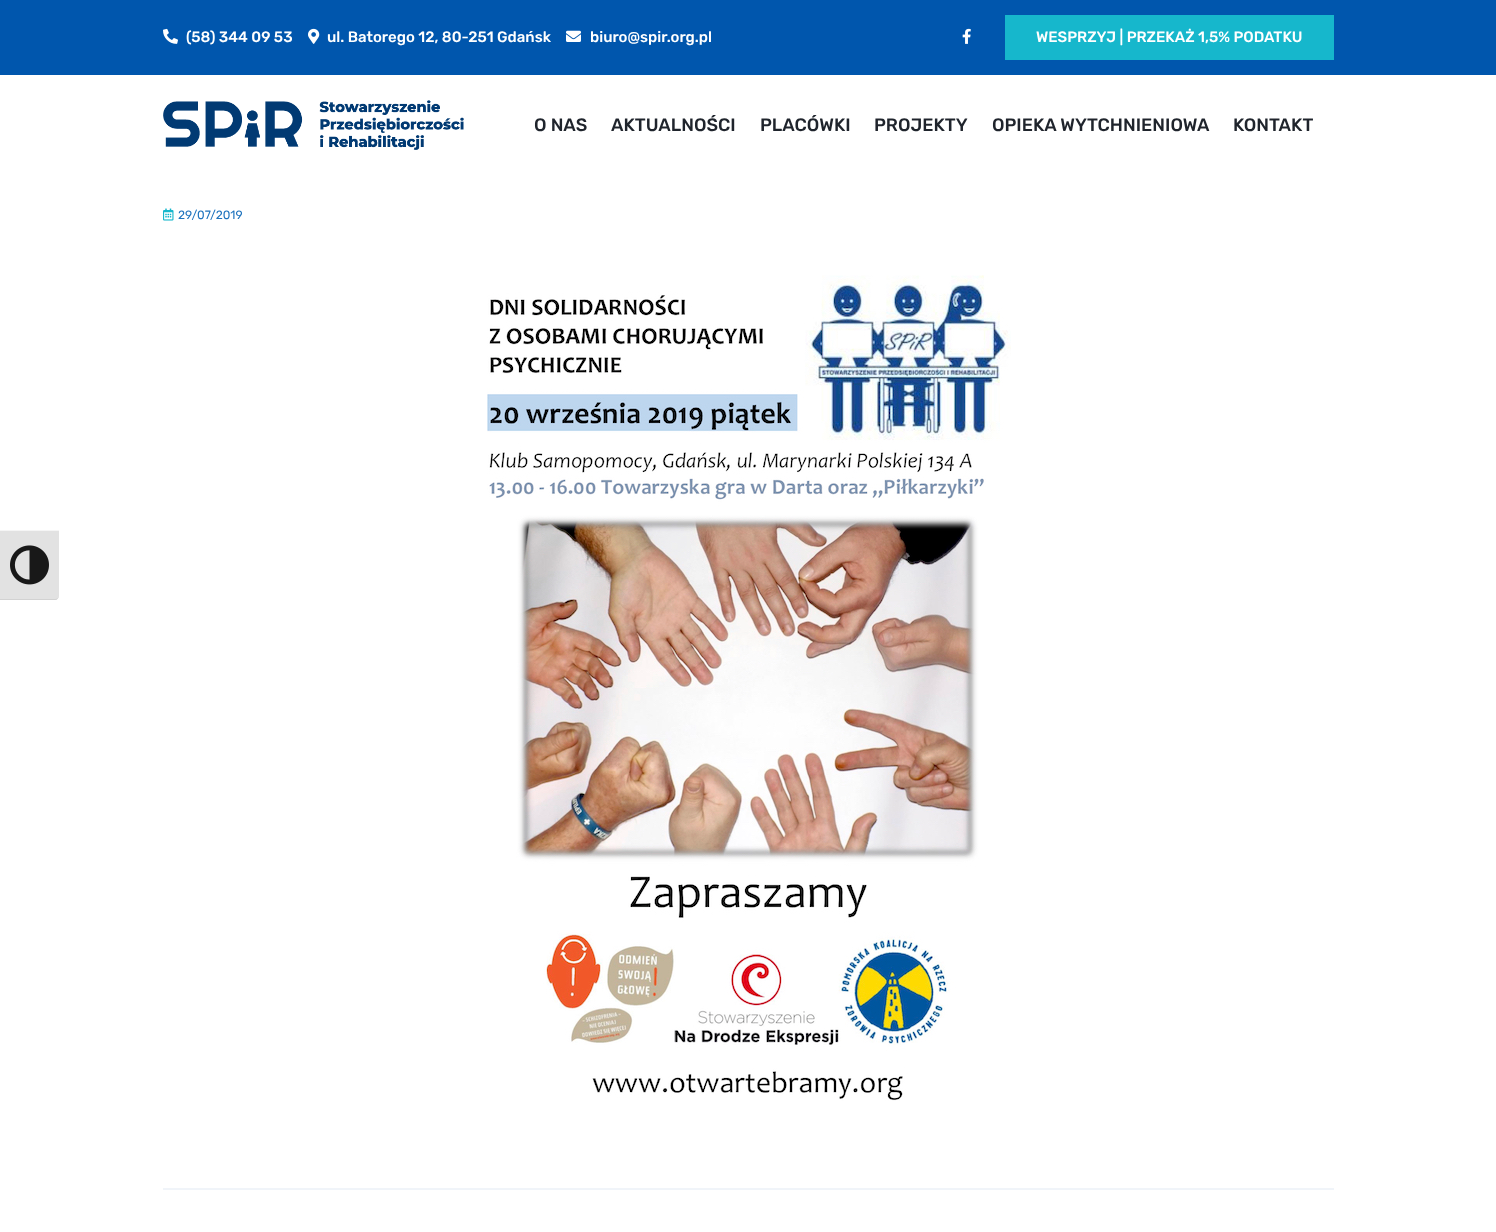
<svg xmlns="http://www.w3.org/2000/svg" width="1496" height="1232">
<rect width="100%" height="100%" fill="#fff"/>
<rect width="1496" height="75" fill="#0056ad"/>
<image x="163" y="28" width="15" height="16" href="media/1.png"/>
<text x="186" y="42" style="font-family:Rubik;font-size:15px;font-weight:500;fill:#fff">(58) 344 09 53</text>
<image x="308" y="28" width="12" height="16" href="media/2.png"/>
<text x="327" y="42" style="font-family:Rubik;font-size:15px;font-weight:500;fill:#fff">ul. Batorego 12, 80-251 Gdańsk</text>
<image x="566" y="30" width="15" height="12" href="media/3.png"/>
<text x="590" y="42" style="font-family:Rubik;font-size:15px;font-weight:500;fill:#fff">biuro@spir.org.pl</text>
<image x="962" y="28" width="9" height="16" href="media/4.png"/>
<rect x="1005" y="15" width="329" height="45" fill="#16b7cc"/>
<text x="1036" y="42" style="font-family:Rubik;font-size:15px;font-weight:500;fill:#fff">WESPRZYJ | PRZEKAŻ 1,5% PODATKU</text>
<image x="163" y="100" width="301" height="50" href="media/5.png"/>
<text x="534" y="131" style="font-family:Rubik;font-size:18px;font-weight:500;fill:#1f242c">O NAS</text>
<text x="611" y="131" style="font-family:Rubik;font-size:18px;font-weight:500;fill:#1f242c">AKTUALNOŚCI</text>
<text x="760" y="131" style="font-family:Rubik;font-size:18px;font-weight:500;fill:#1f242c">PLACÓWKI</text>
<text x="874" y="131" style="font-family:Rubik;font-size:18px;font-weight:500;fill:#1f242c">PROJEKTY</text>
<text x="992" y="131" style="font-family:Rubik;font-size:18px;font-weight:500;fill:#1f242c">OPIEKA WYTCHNIENIOWA</text>
<text x="1233" y="131" style="font-family:Rubik;font-size:18px;font-weight:500;fill:#1f242c">KONTAKT</text>
<rect x="163" y="1188" width="1171" height="2" fill="#f0f4f9"/>
<image x="163" y="208" width="11" height="13" href="media/6.png"/>
<text x="178" y="219" style="font-family:Rubik;font-size:12px;fill:#1e73be">29/07/2019</text>
<image x="487" y="275" width="524" height="826" href="media/7.png"/>
<path d="M0 530h59v66c0 2-2 4-4 4h-55z" fill="#e2e2e2"/>
<rect y="530" width="59" height="1" fill="#f5f5f5"/>
<path d="M0 599v1h55c2 0 4-2 4-4c0 2-2 3-4 3z" fill="#d2d2d2"/>
<image x="10" y="545" width="39" height="40" href="media/8.png"/>
</svg>
